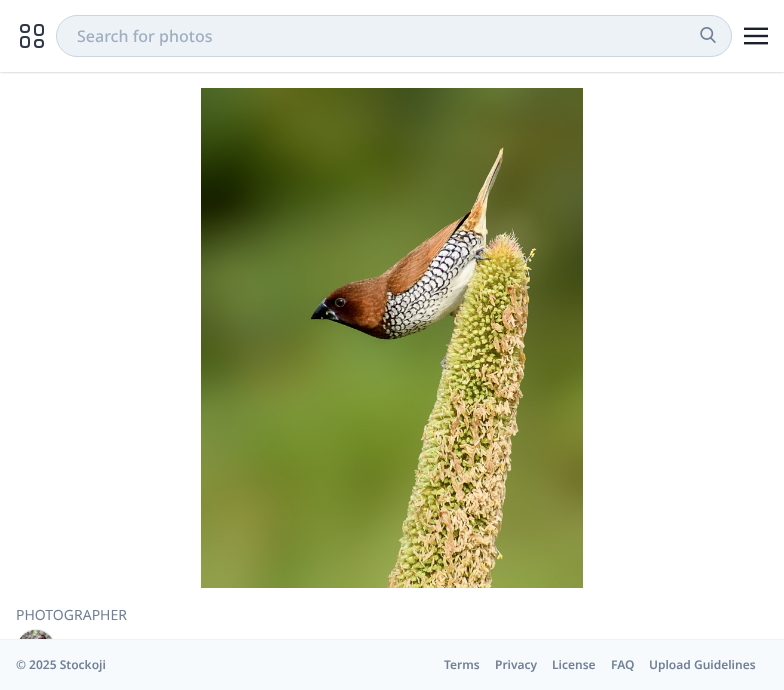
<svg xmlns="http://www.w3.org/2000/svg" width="784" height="690">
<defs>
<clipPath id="clip1"><rect x="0" y="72" width="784" height="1"/></clipPath>
<clipPath id="clip2"><rect x="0" y="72" width="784" height="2"/></clipPath>
</defs>
<rect width="100%" height="100%" fill="#fff"/>
<g clip-path="url(#clip1)">
<rect y="1" width="784" height="72" fill="#0000000f" filter="blur(1px)"/>
</g>
<g clip-path="url(#clip2)">
<rect y="1" width="784" height="72" fill="#0000001a" filter="blur(1.5px)"/>
</g>
<rect x="21" y="25" width="8" height="7" rx="3" fill="none" stroke="#2d3748" stroke-width="2"/>
<rect x="21" y="37" width="8" height="10" rx="3" fill="none" stroke="#2d3748" stroke-width="2"/>
<rect x="35" y="25" width="8" height="10" rx="3" fill="none" stroke="#2d3748" stroke-width="2"/>
<rect x="35" y="40" width="8" height="7" rx="3" fill="none" stroke="#2d3748" stroke-width="2"/>
<rect x="56.5" y="15.5" width="675" height="41" rx="20.5" fill="#edf2f7" stroke="#cbd5e0"/>
<text x="77" y="42" style="font-family:Noto Sans;font-size:16px;font-weight:500;fill:#a0aec0">Search for photos</text>
<image x="700" y="27" width="16" height="16" href="media/1.png"/>
<image x="744" y="27" width="24" height="18" href="media/2.png"/>
<image x="201" y="88" width="382" height="500" href="media/3.png"/>
<text x="16" y="620" style="font-family:Noto Sans;font-size:14px;fill:#718096">PHOTOGRAPHER</text>
<circle cx="36" cy="649" r="19.5" fill="none" stroke="#e2e8f0"/>
<image x="20" y="630" width="32" height="9" href="media/4.png"/>
<rect y="640" width="784" height="50" fill="#f7fafc"/>
<rect y="639" width="784" height="1" fill="#edf2f7"/>
<text x="16" y="669" style="font-family:Noto Sans;font-size:12px;font-weight:600;fill:#718096">© 2025 Stockoji</text>
<text x="444" y="669" style="font-family:Noto Sans;font-size:12px;font-weight:600;fill:#718096">Terms</text>
<text x="495" y="669" style="font-family:Noto Sans;font-size:12px;font-weight:600;fill:#718096">Privacy</text>
<text x="552" y="669" style="font-family:Noto Sans;font-size:12px;font-weight:600;fill:#718096">License</text>
<text x="611" y="669" style="font-family:Noto Sans;font-size:12px;font-weight:600;fill:#718096">FAQ</text>
<text x="649" y="669" style="font-family:Noto Sans;font-size:12px;font-weight:600;fill:#718096">Upload Guidelines</text>
</svg>
